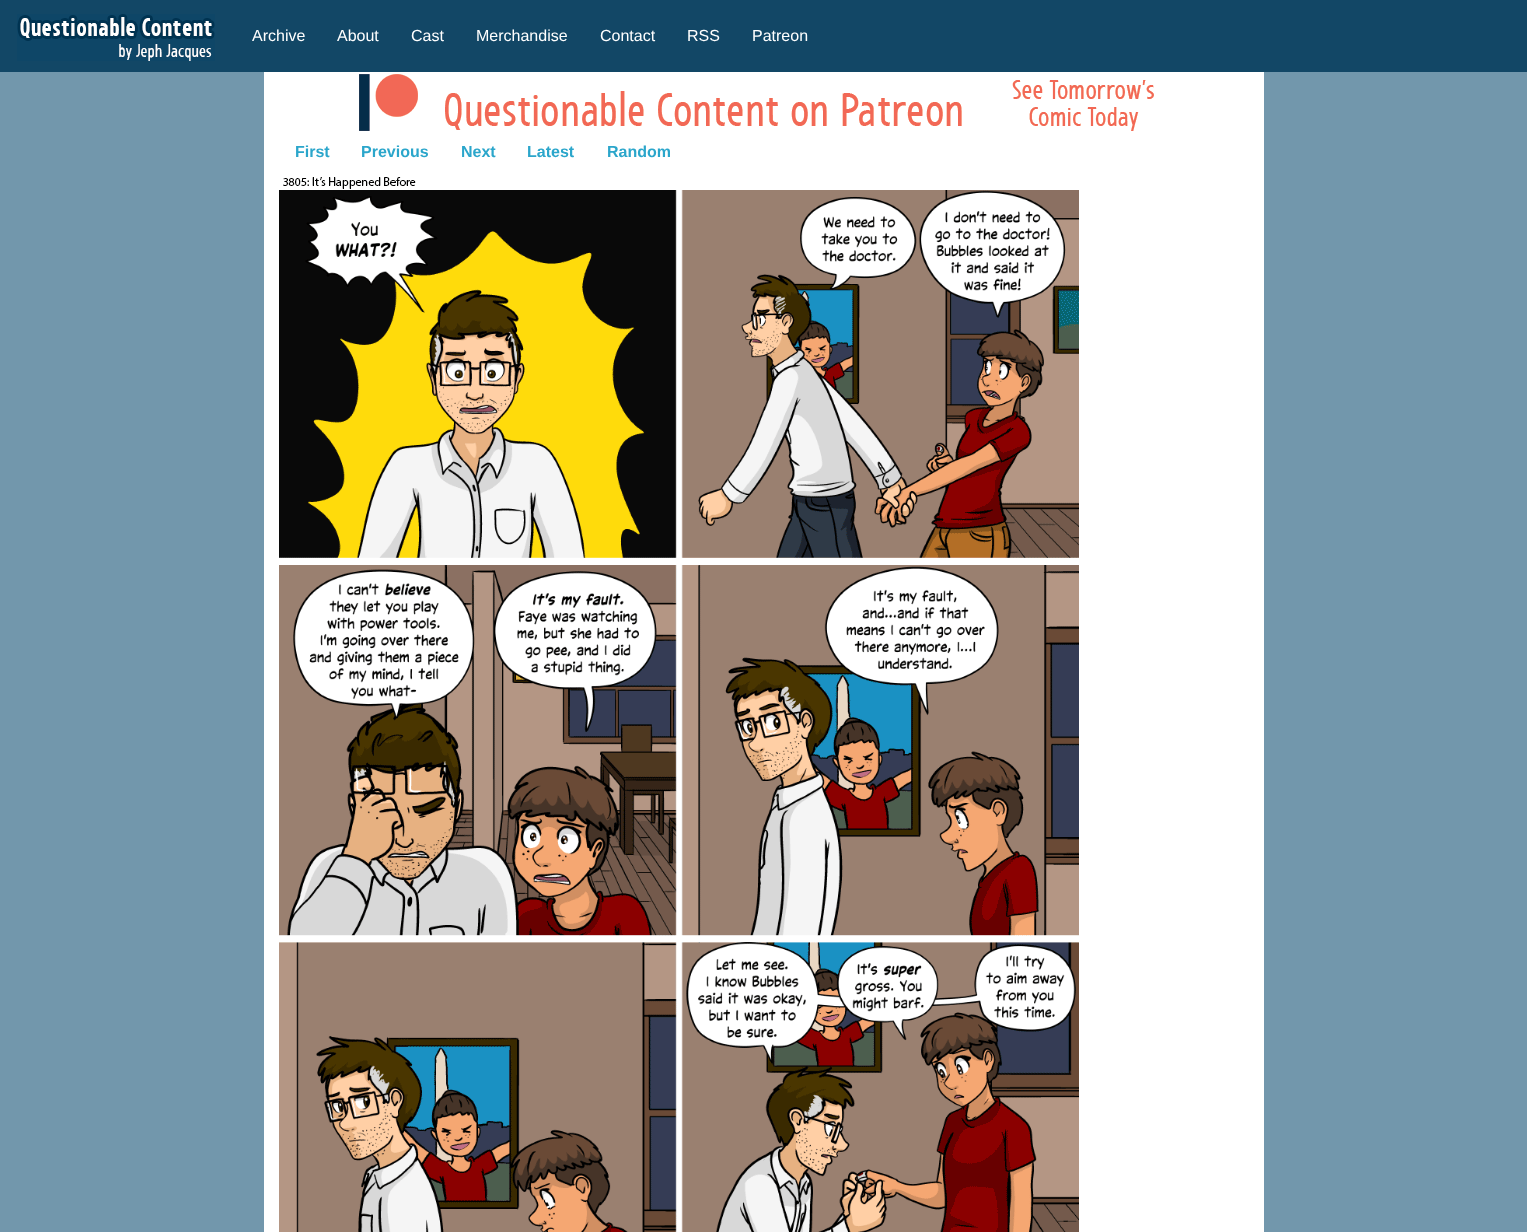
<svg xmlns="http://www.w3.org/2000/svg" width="1527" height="1232">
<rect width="100%" height="100%" fill="#7297ac"/>
<rect width="1527" height="72" fill="#124766"/>
<image x="17" y="14" width="198" height="47" href="media/1.png"/>
<text x="252" y="41" style="font-family:Liberation Sans;font-size:16px;fill:#fff">Archive</text>
<text x="337" y="41" style="font-family:Liberation Sans;font-size:16px;fill:#fff">About</text>
<text x="411" y="41" style="font-family:Liberation Sans;font-size:16px;fill:#fff">Cast</text>
<text x="476" y="41" style="font-family:Liberation Sans;font-size:16px;fill:#fff">Merchandise</text>
<text x="600" y="41" style="font-family:Liberation Sans;font-size:16px;fill:#fff">Contact</text>
<text x="687" y="41" style="font-family:Liberation Sans;font-size:16px;fill:#fff">RSS</text>
<text x="752" y="41" style="font-family:Liberation Sans;font-size:16px;fill:#fff">Patreon</text>
<rect x="264" y="72" width="1000" height="1160" fill="#fff"/>
<image x="359" y="74" width="795" height="57" href="media/2.png"/>
<text x="295" y="157" style="font-family:Liberation Sans;font-size:16px;font-weight:bold;fill:#2ba6cb">First</text>
<text x="361" y="157" style="font-family:Liberation Sans;font-size:16px;font-weight:bold;fill:#2ba6cb">Previous</text>
<text x="461" y="157" style="font-family:Liberation Sans;font-size:16px;font-weight:bold;fill:#2ba6cb">Next</text>
<text x="527" y="157" style="font-family:Liberation Sans;font-size:16px;font-weight:bold;fill:#2ba6cb">Latest</text>
<text x="607" y="157" style="font-family:Liberation Sans;font-size:16px;font-weight:bold;fill:#2ba6cb">Random</text>
<image x="279" y="177" width="800" height="1055" href="media/3.png"/>
</svg>
